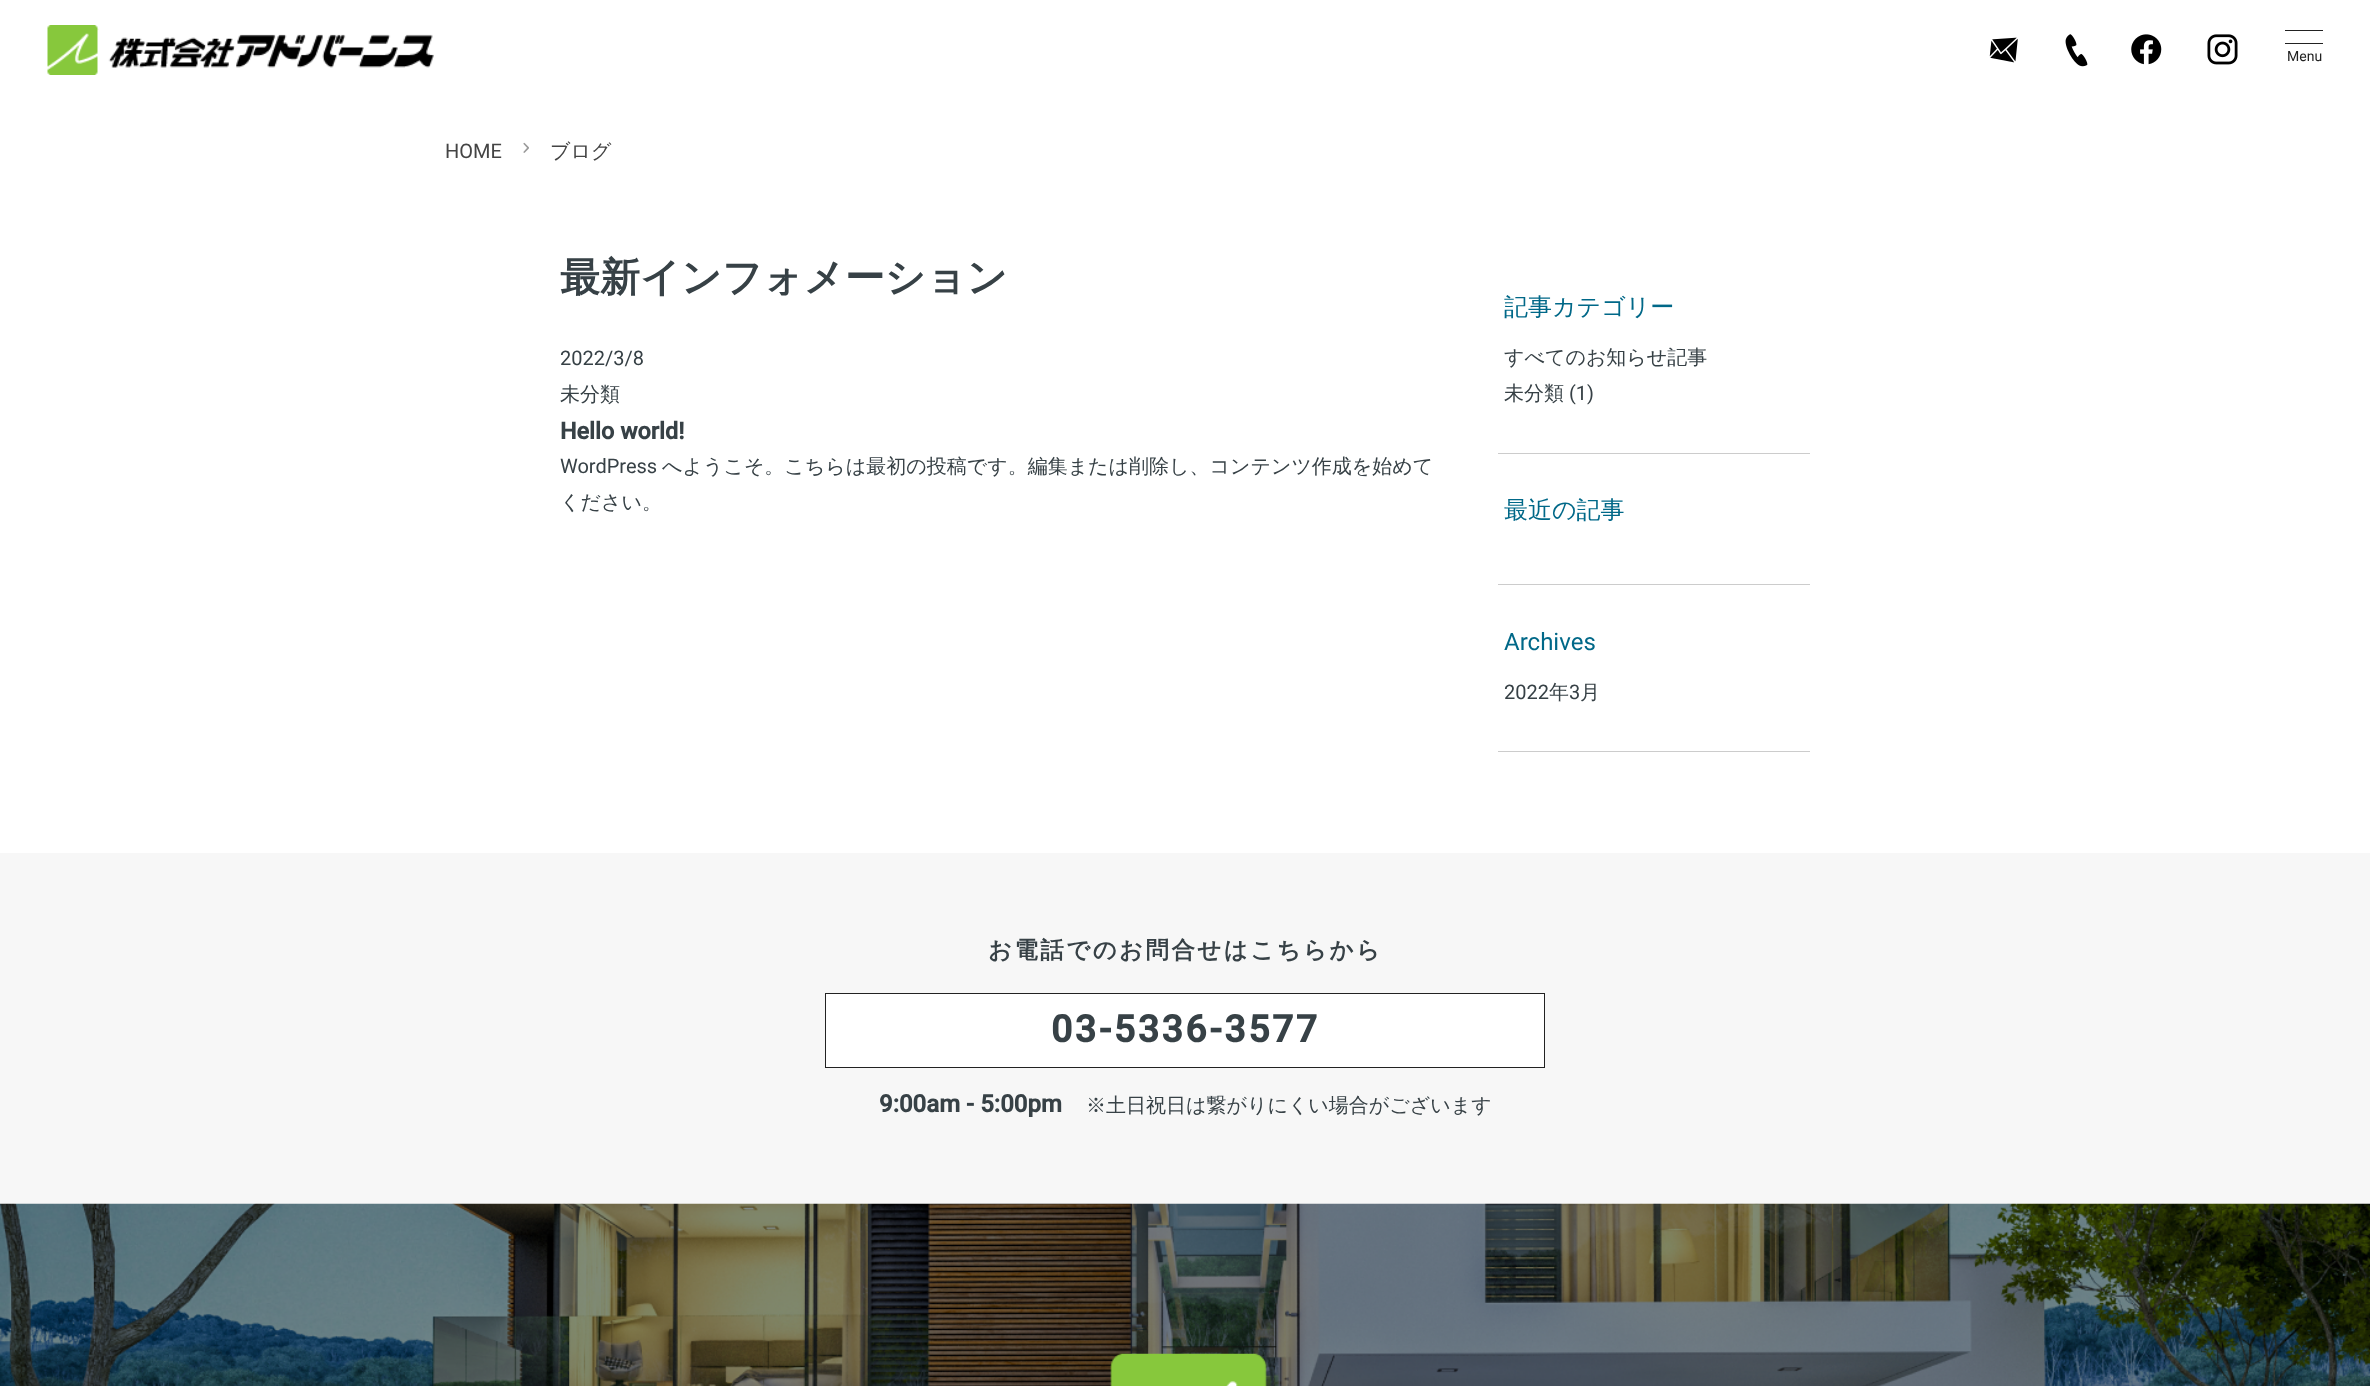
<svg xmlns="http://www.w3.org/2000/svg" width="2370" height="1386">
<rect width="100%" height="100%" fill="#fff"/>
<image x="47" y="25" width="387" height="50" href="media/1.png"/>
<image x="1989" y="37" width="29" height="26" href="media/2.png"/>
<image x="2065" y="34" width="23" height="33" href="media/3.png"/>
<image x="2131" y="34" width="31" height="31" href="media/4.png"/>
<image x="2207" y="34" width="31" height="31" href="media/5.png"/>
<rect x="2285" y="30" width="38" height="1" fill="#222"/>
<rect x="2285" y="43" width="38" height="1" fill="#222"/>
<text x="2287" y="61" style="font-family:Roboto;font-size:14px;fill:#222">Menu</text>
<text x="445" y="158" style="font-family:Roboto;font-size:20px;fill:#444">HOME</text>
<image x="523" y="142" width="6" height="11" href="media/6.png"/>
<text x="550" y="158" style="font-family:WenQuanYi Zen Hei;font-size:20px;font-weight:500;fill:#444">ブログ</text>
<text x="560" y="291" style="font-family:WenQuanYi Zen Hei;font-size:40px;font-weight:bold;fill:#374146">最新インフォメーション</text>
<text x="560" y="365" style="font-family:Roboto;font-size:20px;fill:#374146">2022/3/8</text>
<text x="560" y="401" style="font-family:WenQuanYi Zen Hei;font-size:20px;font-weight:500;fill:#374146">未分類</text>
<text x="560" y="439" style="font-family:Roboto;font-size:23.4px;font-weight:bold;fill:#374146">Hello world!</text>
<text x="560" y="473" style="font-family:Roboto;font-size:20px;fill:#374146">WordPress</text>
<text x="662" y="473" style="font-family:WenQuanYi Zen Hei;font-size:20px;font-weight:500;fill:#374146">へようこそ。こちらは最初の投稿です。編集または削除し、コンテンツ作成を始めて</text>
<text x="560" y="509" style="font-family:WenQuanYi Zen Hei;font-size:20px;font-weight:500;fill:#374146">ください。</text>
<rect x="1498" y="453" width="312" height="1" fill="#ccc"/>
<text x="1504" y="315" style="font-family:WenQuanYi Zen Hei;font-size:24px;font-weight:500;fill:#006888">記事カテゴリー</text>
<text x="1504" y="364" style="font-family:WenQuanYi Zen Hei;font-size:20px;font-weight:500;fill:#374146">すべてのお知らせ記事</text>
<text x="1504" y="400" style="font-family:WenQuanYi Zen Hei;font-size:20px;font-weight:500;fill:#374146">未分類</text>
<text x="1569" y="400" style="font-family:Roboto;font-size:20px;fill:#374146">(1)</text>
<rect x="1498" y="584" width="312" height="1" fill="#ccc"/>
<text x="1504" y="518" style="font-family:WenQuanYi Zen Hei;font-size:24px;font-weight:500;fill:#006888">最近の記事</text>
<rect x="1498" y="751" width="312" height="1" fill="#ccc"/>
<text x="1504" y="650" style="font-family:Roboto;font-size:24px;fill:#006888">Archives</text>
<text x="1504" y="699" style="font-family:Roboto;font-size:20px;fill:#374146">2022</text>
<text x="1549" y="699" style="font-family:WenQuanYi Zen Hei;font-size:20px;font-weight:500;fill:#374146">年</text>
<text x="1569" y="699" style="font-family:Roboto;font-size:20px;fill:#374146">3</text>
<text x="1580" y="699" style="font-family:WenQuanYi Zen Hei;font-size:20px;font-weight:500;fill:#374146">月</text>
<rect y="853" width="2370" height="351" fill="#f7f7f7"/>
<text x="988" y="958" style="font-family:WenQuanYi Zen Hei;font-size:23.4px;font-weight:bold;letter-spacing:2.5px;fill:#374146">お電話でのお問合せはこちらから</text>
<rect x="825.5" y="993.5" width="719" height="74" fill="#fff" stroke="#222"/>
<text x="1051" y="1042" style="font-family:Roboto;font-size:37.5px;font-weight:bold;letter-spacing:2.5px;fill:#374146">03-5336-3577</text>
<text x="879" y="1112" style="font-family:Roboto;font-size:24px;font-weight:bold;fill:#374146">9:00am - 5:00pm</text>
<text x="1086" y="1112" style="font-family:WenQuanYi Zen Hei;font-size:20px;font-weight:500;fill:#374146">※土日祝日は繋がりにくい場合がございます</text>
<image x="0" y="1203" width="2370" height="183" href="media/7.png"/>
<image x="1110" y="1353" width="157" height="33" href="media/8.png"/>
</svg>
